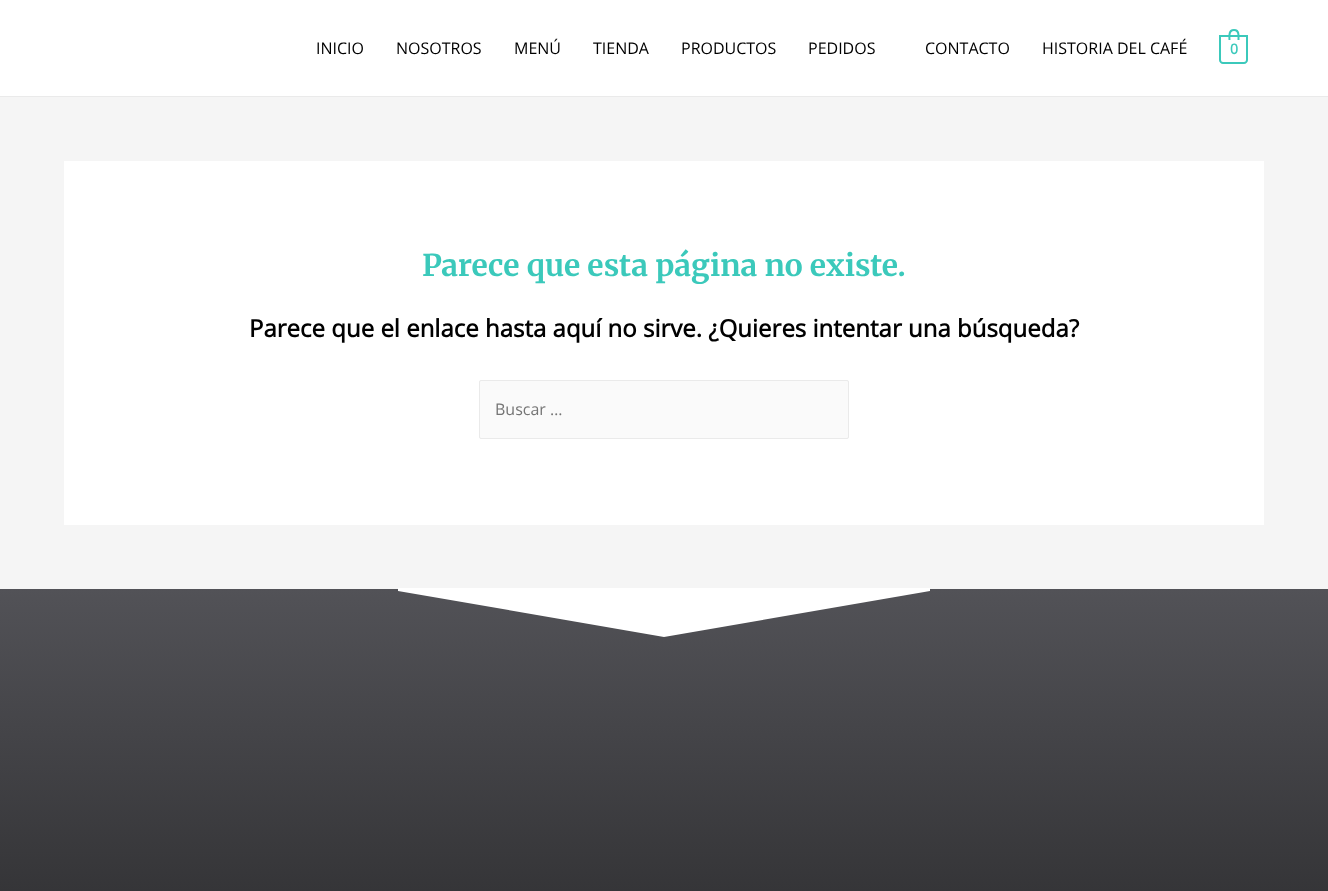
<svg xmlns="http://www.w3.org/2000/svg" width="1328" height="891">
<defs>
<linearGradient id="g1" gradientUnits="userSpaceOnUse" x1="664" y1="589" x2="664" y2="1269"><stop offset="0" stop-color="#525257"/><stop offset="1" stop-color="#111"/></linearGradient>
</defs>
<rect width="100%" height="100%" fill="#f5f5f5"/>
<rect width="1328" height="96" fill="#fff"/>
<rect y="96" width="1328" height="1" fill="#eaeaea"/>
<text x="316" y="54" style="font-family:Open Sans;font-size:16px;fill:#000">INICIO</text>
<text x="396" y="54" style="font-family:Open Sans;font-size:16px;fill:#000">NOSOTROS</text>
<text x="514" y="54" style="font-family:Open Sans;font-size:16px;fill:#000">MENÚ</text>
<text x="593" y="54" style="font-family:Open Sans;font-size:16px;fill:#000">TIENDA</text>
<text x="681" y="54" style="font-family:Open Sans;font-size:16px;fill:#000">PRODUCTOS</text>
<text x="808" y="54" style="font-family:Open Sans;font-size:16px;fill:#000">PEDIDOS</text>
<text x="925" y="54" style="font-family:Open Sans;font-size:16px;fill:#000">CONTACTO</text>
<text x="1042" y="54" style="font-family:Open Sans;font-size:16px;fill:#000">HISTORIA DEL CAFÉ</text>
<path d="M1220 36h27v24c0 1.5-1.5 3-3 3h-21c-1.5 0-3-1.5-3-3z" fill="none" stroke="#3bc9bb" stroke-width="2"/>
<path d="M1234 29c6.5 0 5.5 6.5 5.5 11h-11c0-4.5-1-11 5.5-11zm0 2c4.5 0 3.5 6 3.5 9h-7c0-3-1-9 3.5-9z" fill="#3bc9bb" fill-rule="evenodd"/>
<text x="1230" y="54" style="font-family:Open Sans;font-size:14px;font-weight:bold;fill:#3bc9bb">0</text>
<rect x="64" y="161" width="1200" height="364" fill="#fff"/>
<text x="422" y="276" style="font-family:Merriweather;font-size:30px;font-weight:300;fill:#3bc9bb">Parece que esta página no existe.</text>
<text x="249" y="337" style="font-family:Open Sans;font-size:24px;font-weight:bold;fill:#000">Parece que el enlace hasta aquí no sirve. ¿Quieres intentar una búsqueda?</text>
<rect x="479.5" y="380.5" width="369" height="58" rx="1.5" fill="#fafafa" stroke="#eaeaea"/>
<text x="495" y="415" style="font-family:Open Sans;font-size:16px;fill:#757575">Buscar …</text>
<rect y="589" width="1328" height="302" fill="url(#g1)"/>
<path d="M664 637l-266-46v-3h532v3z" fill="#fff"/>
</svg>
